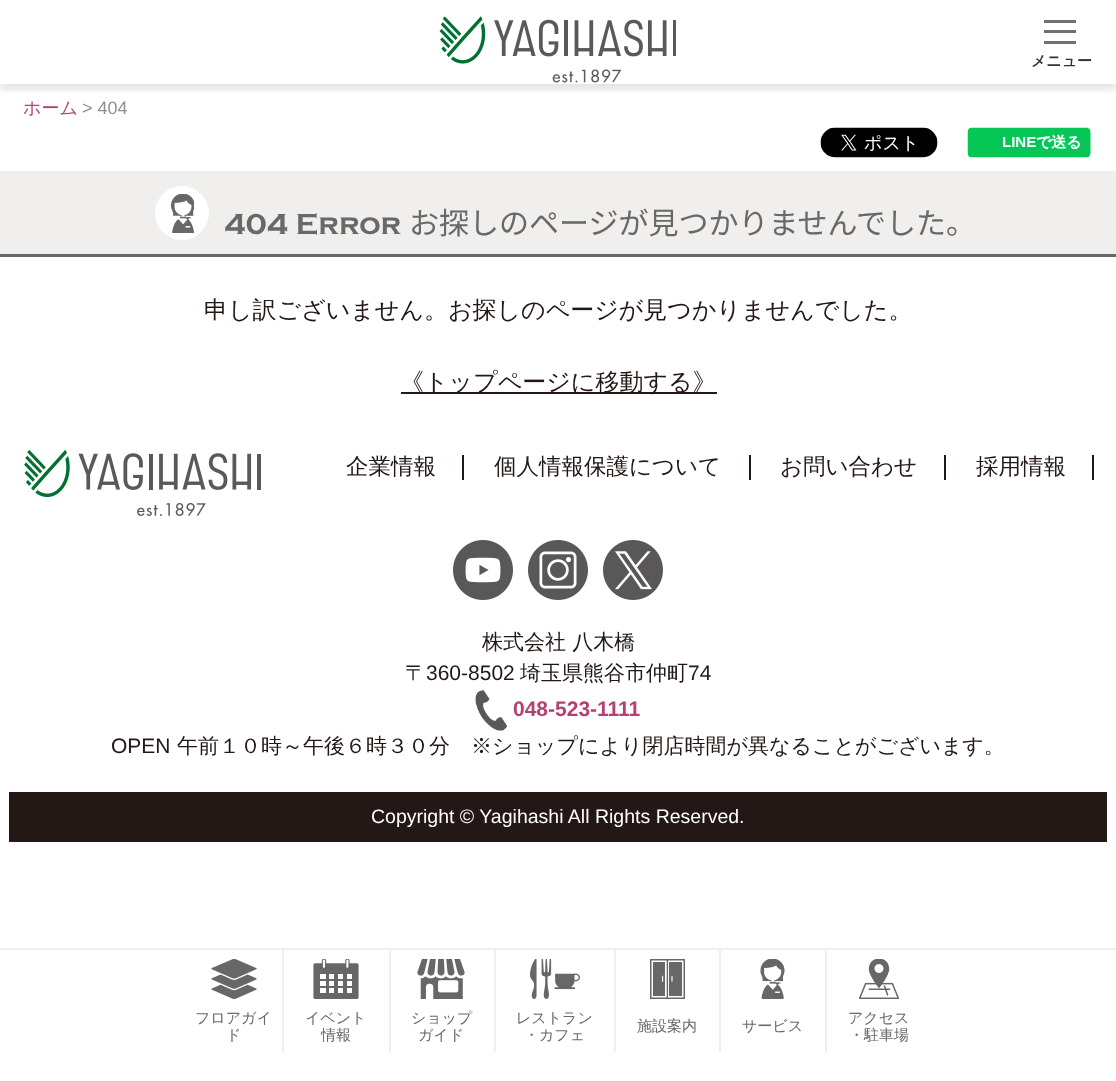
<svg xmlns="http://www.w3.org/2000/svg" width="1116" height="1081">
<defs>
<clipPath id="clip1"><rect x="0" y="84" width="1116" height="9"/></clipPath>
</defs>
<rect width="100%" height="100%" fill="#fff"/>
<g clip-path="url(#clip1)">
<rect y="6" width="1116" height="84" fill="#0000001a" filter="blur(3px)"/>
</g>
<image x="439" y="16" width="237" height="67" href="media/1.png"/>
<rect x="1044" y="20" width="32" height="3" fill="#717071"/>
<rect x="1044" y="30" width="32" height="3" fill="#717071"/>
<rect x="1044" y="41" width="32" height="3" fill="#717071"/>
<text x="1031" y="66" style="font-family:WenQuanYi Zen Hei;font-size:15px;font-weight:bold;fill:#333">メニュー</text>
<rect y="171" width="1116" height="83" fill="#f0efee"/>
<text x="23" y="114" style="font-family:WenQuanYi Zen Hei;font-size:18px;font-weight:500;fill:#b64076">ホーム</text>
<text x="82" y="114" style="font-family:Liberation Sans;font-size:18px;fill:#8f918e">&gt; 404</text>
<image x="820" y="127" width="118" height="31" href="media/2.png"/>
<image x="967" y="127" width="124" height="31" href="media/3.png"/>
<rect y="254" width="1116" height="3" fill="#686768"/>
<circle cx="182" cy="213" r="27" fill="#fff"/>
<image x="171" y="194" width="23" height="39" href="media/4.png"/>
<text x="224" y="234" style="font-family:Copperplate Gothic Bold;font-size:30px;font-weight:bold;fill:#686869">404 Error</text>
<text x="409" y="234" style="font-family:Noto Sans JP;font-size:30px;font-weight:100;fill:#686869">お探しのページが見つかりませんでした。</text>
<text x="204" y="318" style="font-family:WenQuanYi Zen Hei;font-size:24px;font-weight:500;fill:#231815">申し訳ございません。お探しのページが見つかりませんでした。</text>
<rect x="401" y="392" width="316" height="2" fill="#231815"/>
<text x="400" y="390" style="font-family:WenQuanYi Zen Hei;font-size:24px;font-weight:500;fill:#231815">《トップページに移動する》</text>
<image x="24" y="449" width="237" height="67" href="media/5.png"/>
<rect x="462" y="455" width="2" height="25" fill="#231815"/>
<text x="346" y="474" style="font-family:WenQuanYi Zen Hei;font-size:22.5px;font-weight:500;fill:#231815">企業情報</text>
<rect x="749" y="455" width="2" height="25" fill="#231815"/>
<text x="494" y="474" style="font-family:WenQuanYi Zen Hei;font-size:22.5px;font-weight:500;fill:#231815">個人情報保護について</text>
<rect x="944" y="455" width="2" height="25" fill="#231815"/>
<text x="780" y="474" style="font-family:WenQuanYi Zen Hei;font-size:22.5px;font-weight:500;fill:#231815">お問い合わせ</text>
<rect x="1092" y="455" width="2" height="25" fill="#231815"/>
<text x="976" y="474" style="font-family:WenQuanYi Zen Hei;font-size:22.5px;font-weight:500;fill:#231815">採用情報</text>
<image x="453" y="540" width="60" height="60" href="media/6.png"/>
<image x="528" y="540" width="60" height="60" href="media/7.png"/>
<image x="603" y="540" width="60" height="60" href="media/8.png"/>
<text x="482" y="649" style="font-family:WenQuanYi Zen Hei;font-size:21px;font-weight:500;fill:#231815">株式会社 八木橋</text>
<text x="405" y="680" style="font-family:WenQuanYi Zen Hei;font-size:21px;font-weight:500;fill:#231815">〒</text>
<text x="426" y="680" style="font-family:Liberation Sans;font-size:21px;fill:#231815">360-8502</text>
<text x="520" y="680" style="font-family:WenQuanYi Zen Hei;font-size:21px;font-weight:500;fill:#231815">埼玉県熊谷市仲町</text>
<text x="688" y="680" style="font-family:Liberation Sans;font-size:21px;fill:#231815">74</text>
<image x="475" y="690" width="32" height="41" href="media/9.png"/>
<text x="513" y="716" style="font-family:Liberation Sans;font-size:21px;font-weight:bold;fill:#b64076">048-523-1111</text>
<text x="111" y="753" style="font-family:Liberation Sans;font-size:21px;fill:#231815">OPEN</text>
<text x="177" y="753" style="font-family:WenQuanYi Zen Hei;font-size:21px;font-weight:500;fill:#231815">午前１０時～午後６時３０分　※ショップにより閉店時間が異なることがございます。</text>
<rect x="9" y="792" width="1098" height="50" fill="#231815"/>
<text x="371" y="823" style="font-family:Liberation Sans;font-size:19.5px;fill:#fff">Copyright © Yagihashi All Rights Reserved.</text>
<rect y="948" width="1116" height="2" fill="#f0efee"/>
<rect x="282" y="950" width="2" height="102" fill="#f0efee"/>
<image x="211" y="959" width="46" height="40" href="media/10.png"/>
<text x="195" y="1023" style="font-family:WenQuanYi Zen Hei;font-size:15px;font-weight:500;fill:#686869">フロアガイ</text>
<text x="226" y="1040" style="font-family:WenQuanYi Zen Hei;font-size:15px;font-weight:500;fill:#686869">ド</text>
<rect x="389" y="950" width="2" height="102" fill="#f0efee"/>
<image x="313" y="959" width="46" height="40" href="media/11.png"/>
<text x="305" y="1023" style="font-family:WenQuanYi Zen Hei;font-size:15px;font-weight:500;fill:#686869">イベント</text>
<text x="321" y="1040" style="font-family:WenQuanYi Zen Hei;font-size:15px;font-weight:500;fill:#686869">情報</text>
<rect x="494" y="950" width="2" height="102" fill="#f0efee"/>
<image x="417" y="959" width="48" height="40" href="media/12.png"/>
<text x="411" y="1023" style="font-family:WenQuanYi Zen Hei;font-size:15px;font-weight:500;fill:#686869">ショップ</text>
<text x="418" y="1040" style="font-family:WenQuanYi Zen Hei;font-size:15px;font-weight:500;fill:#686869">ガイド</text>
<rect x="614" y="950" width="2" height="102" fill="#f0efee"/>
<image x="530" y="959" width="50" height="40" href="media/13.png"/>
<text x="516" y="1023" style="font-family:WenQuanYi Zen Hei;font-size:15px;font-weight:500;fill:#686869">レストラン</text>
<text x="524" y="1040" style="font-family:WenQuanYi Zen Hei;font-size:15px;font-weight:500;fill:#686869">・カフェ</text>
<rect x="719" y="950" width="2" height="102" fill="#f0efee"/>
<image x="650" y="959" width="35" height="40" href="media/14.png"/>
<text x="637" y="1031" style="font-family:WenQuanYi Zen Hei;font-size:15px;font-weight:500;fill:#686869">施設案内</text>
<rect x="825" y="950" width="2" height="102" fill="#f0efee"/>
<image x="760" y="959" width="25" height="40" href="media/15.png"/>
<text x="742" y="1031" style="font-family:WenQuanYi Zen Hei;font-size:15px;font-weight:500;fill:#686869">サービス</text>
<image x="858" y="959" width="42" height="40" href="media/16.png"/>
<text x="848" y="1023" style="font-family:WenQuanYi Zen Hei;font-size:15px;font-weight:500;fill:#686869">アクセス</text>
<text x="849" y="1040" style="font-family:WenQuanYi Zen Hei;font-size:15px;font-weight:500;fill:#686869">・駐車場</text>
</svg>
